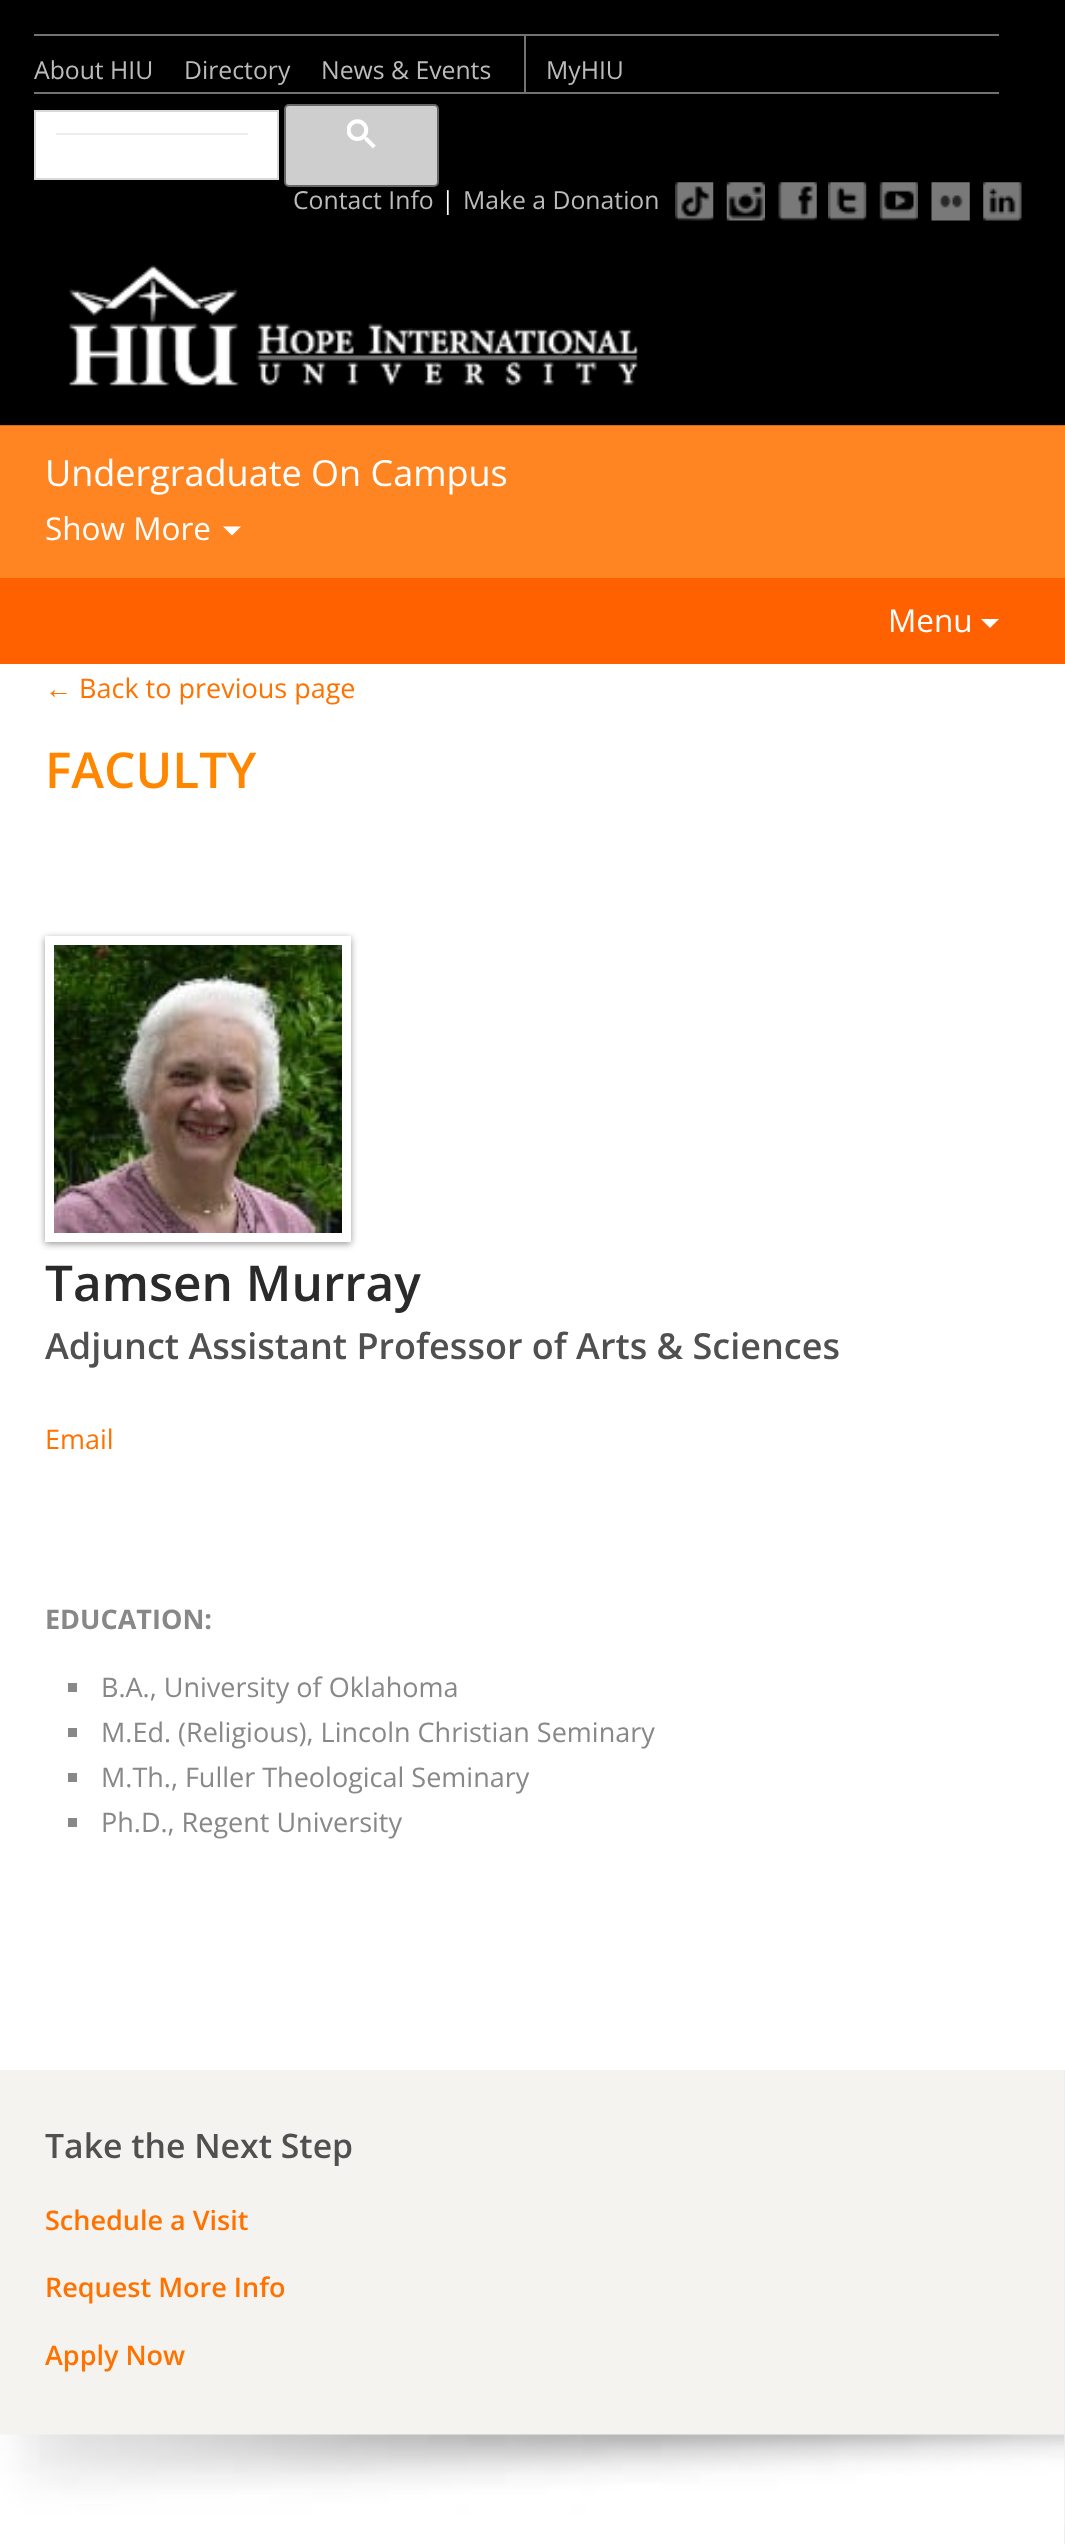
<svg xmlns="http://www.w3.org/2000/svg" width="1065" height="2544">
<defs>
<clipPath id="clip1"><path d="M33 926h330v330h-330zm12 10h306v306h-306z" clip-rule="evenodd"/></clipPath>
</defs>
<rect width="100%" height="100%" fill="#fff"/>
<rect width="1065" height="425" fill="#000"/>
<rect y="425" width="1065" height="1" fill="#cf6c1c"/>
<rect x="34" y="34" width="965" height="2" fill="#727271"/>
<rect x="34" y="92" width="965" height="2" fill="#727271"/>
<text x="34" y="79" style="font-family:Open Sans;font-size:24.75px;fill:#bbb">About HIU</text>
<text x="184" y="79" style="font-family:Open Sans;font-size:24.75px;fill:#bbb">Directory</text>
<rect x="524" y="36" width="2" height="56" fill="#727271"/>
<text x="321" y="79" style="font-family:Open Sans;font-size:24.75px;fill:#bbb">News &amp; Events</text>
<text x="546" y="79" style="font-family:Open Sans;font-size:24.75px;fill:#bbb">MyHIU</text>
<rect x="35" y="111" width="243" height="68" fill="#fff" stroke="#d9d9d9" stroke-width="2"/>
<rect x="56" y="133" width="192" height="2" fill="#ececec"/>
<rect x="285" y="105" width="153" height="81" rx="4" fill="#cecece" stroke="#666" stroke-width="2"/>
<image x="347" y="119" width="29" height="30" href="media/1.png"/>
<text x="293" y="209" style="font-family:Open Sans;font-size:24.75px;fill:#bbb">Contact Info</text>
<text x="441" y="209" style="font-family:Open Sans;font-size:24.75px;fill:#fff">|</text>
<text x="463" y="209" style="font-family:Open Sans;font-size:24.75px;fill:#bbb">Make a Donation</text>
<image x="675" y="182" width="39" height="39" href="media/2.png"/>
<image x="726" y="182" width="39" height="39" href="media/3.png"/>
<image x="778" y="182" width="39" height="39" href="media/4.png"/>
<image x="828" y="182" width="39" height="39" href="media/5.png"/>
<image x="879" y="182" width="39" height="39" href="media/6.png"/>
<image x="931" y="182" width="39" height="39" href="media/7.png"/>
<image x="983" y="182" width="39" height="39" href="media/8.png"/>
<image x="69" y="265" width="569" height="121" href="media/9.png"/>
<rect y="426" width="1065" height="152" fill="#ff8522"/>
<text x="45" y="486" style="font-family:Open Sans;font-size:36px;fill:#fff">Undergraduate On Campus</text>
<text x="45" y="540" style="font-family:Open Sans;font-size:31.5px;fill:#fff">Show More</text>
<path d="M223 526.5h18l-9 9z" fill="#fff"/>
<rect y="578" width="1065" height="86" fill="#ff6000"/>
<text x="888" y="632" style="font-family:Open Sans;font-size:31.5px;fill:#fff">Menu</text>
<path d="M981 619h18l-9 9z" fill="#fff"/>
<text x="45" y="698" style="font-family:Liberation Sans;font-size:27px;fill:#ff7200">←</text>
<text x="79" y="698" style="font-family:Open Sans;font-size:27px;fill:#ff7200">Back to previous page</text>
<text x="45" y="788" style="font-family:Open Sans;font-size:49.5px;font-weight:600;fill:#ff8700">FACULTY</text>
<g clip-path="url(#clip1)">
<rect x="45" y="938" width="306" height="306" fill="#00000066" filter="blur(3.5px)"/>
</g>
<image x="54" y="945" width="288" height="288" href="media/10.png"/>
<text x="45" y="1301" style="font-family:Open Sans;font-size:49.5px;font-weight:600;fill:#2a2a2a">Tamsen Murray</text>
<text x="45" y="1359" style="font-family:Open Sans;font-size:36px;font-weight:600;fill:#505050">Adjunct Assistant Professor of Arts &amp; Sciences</text>
<text x="45" y="1449" style="font-family:Open Sans;font-size:27px;fill:#ff7200">Email</text>
<text x="45" y="1629" style="font-family:Open Sans;font-size:27px;font-weight:bold;fill:#888">EDUCATION:</text>
<rect x="68" y="1683" width="9" height="9" fill="#888"/>
<text x="101" y="1697" style="font-family:Open Sans;font-size:27px;fill:#888">B.A., University of Oklahoma</text>
<rect x="68" y="1728" width="9" height="9" fill="#888"/>
<text x="101" y="1742" style="font-family:Open Sans;font-size:27px;fill:#888">M.Ed. (Religious), Lincoln Christian Seminary</text>
<rect x="68" y="1773" width="9" height="9" fill="#888"/>
<text x="101" y="1787" style="font-family:Open Sans;font-size:27px;fill:#888">M.Th., Fuller Theological Seminary</text>
<rect x="68" y="1818" width="9" height="9" fill="#888"/>
<text x="101" y="1832" style="font-family:Open Sans;font-size:27px;fill:#888">Ph.D., Regent University</text>
<rect x="1064" y="2070" width="1" height="474" fill="#eee"/>
<rect y="2070" width="1064" height="365" fill="#f5f3ef"/>
<text x="45" y="2158" style="font-family:Open Sans;font-size:33.75px;font-weight:600;fill:#505050">Take the Next Step</text>
<text x="45" y="2230" style="font-family:Open Sans;font-size:27px;font-weight:600;fill:#ff7200">Schedule a Visit</text>
<text x="45" y="2297" style="font-family:Open Sans;font-size:27px;font-weight:600;fill:#ff7200">Request More Info</text>
<text x="45" y="2365" style="font-family:Open Sans;font-size:27px;font-weight:600;fill:#ff7200">Apply Now</text>
<image x="0" y="2434" width="1065" height="92" href="media/11.png"/>
</svg>
